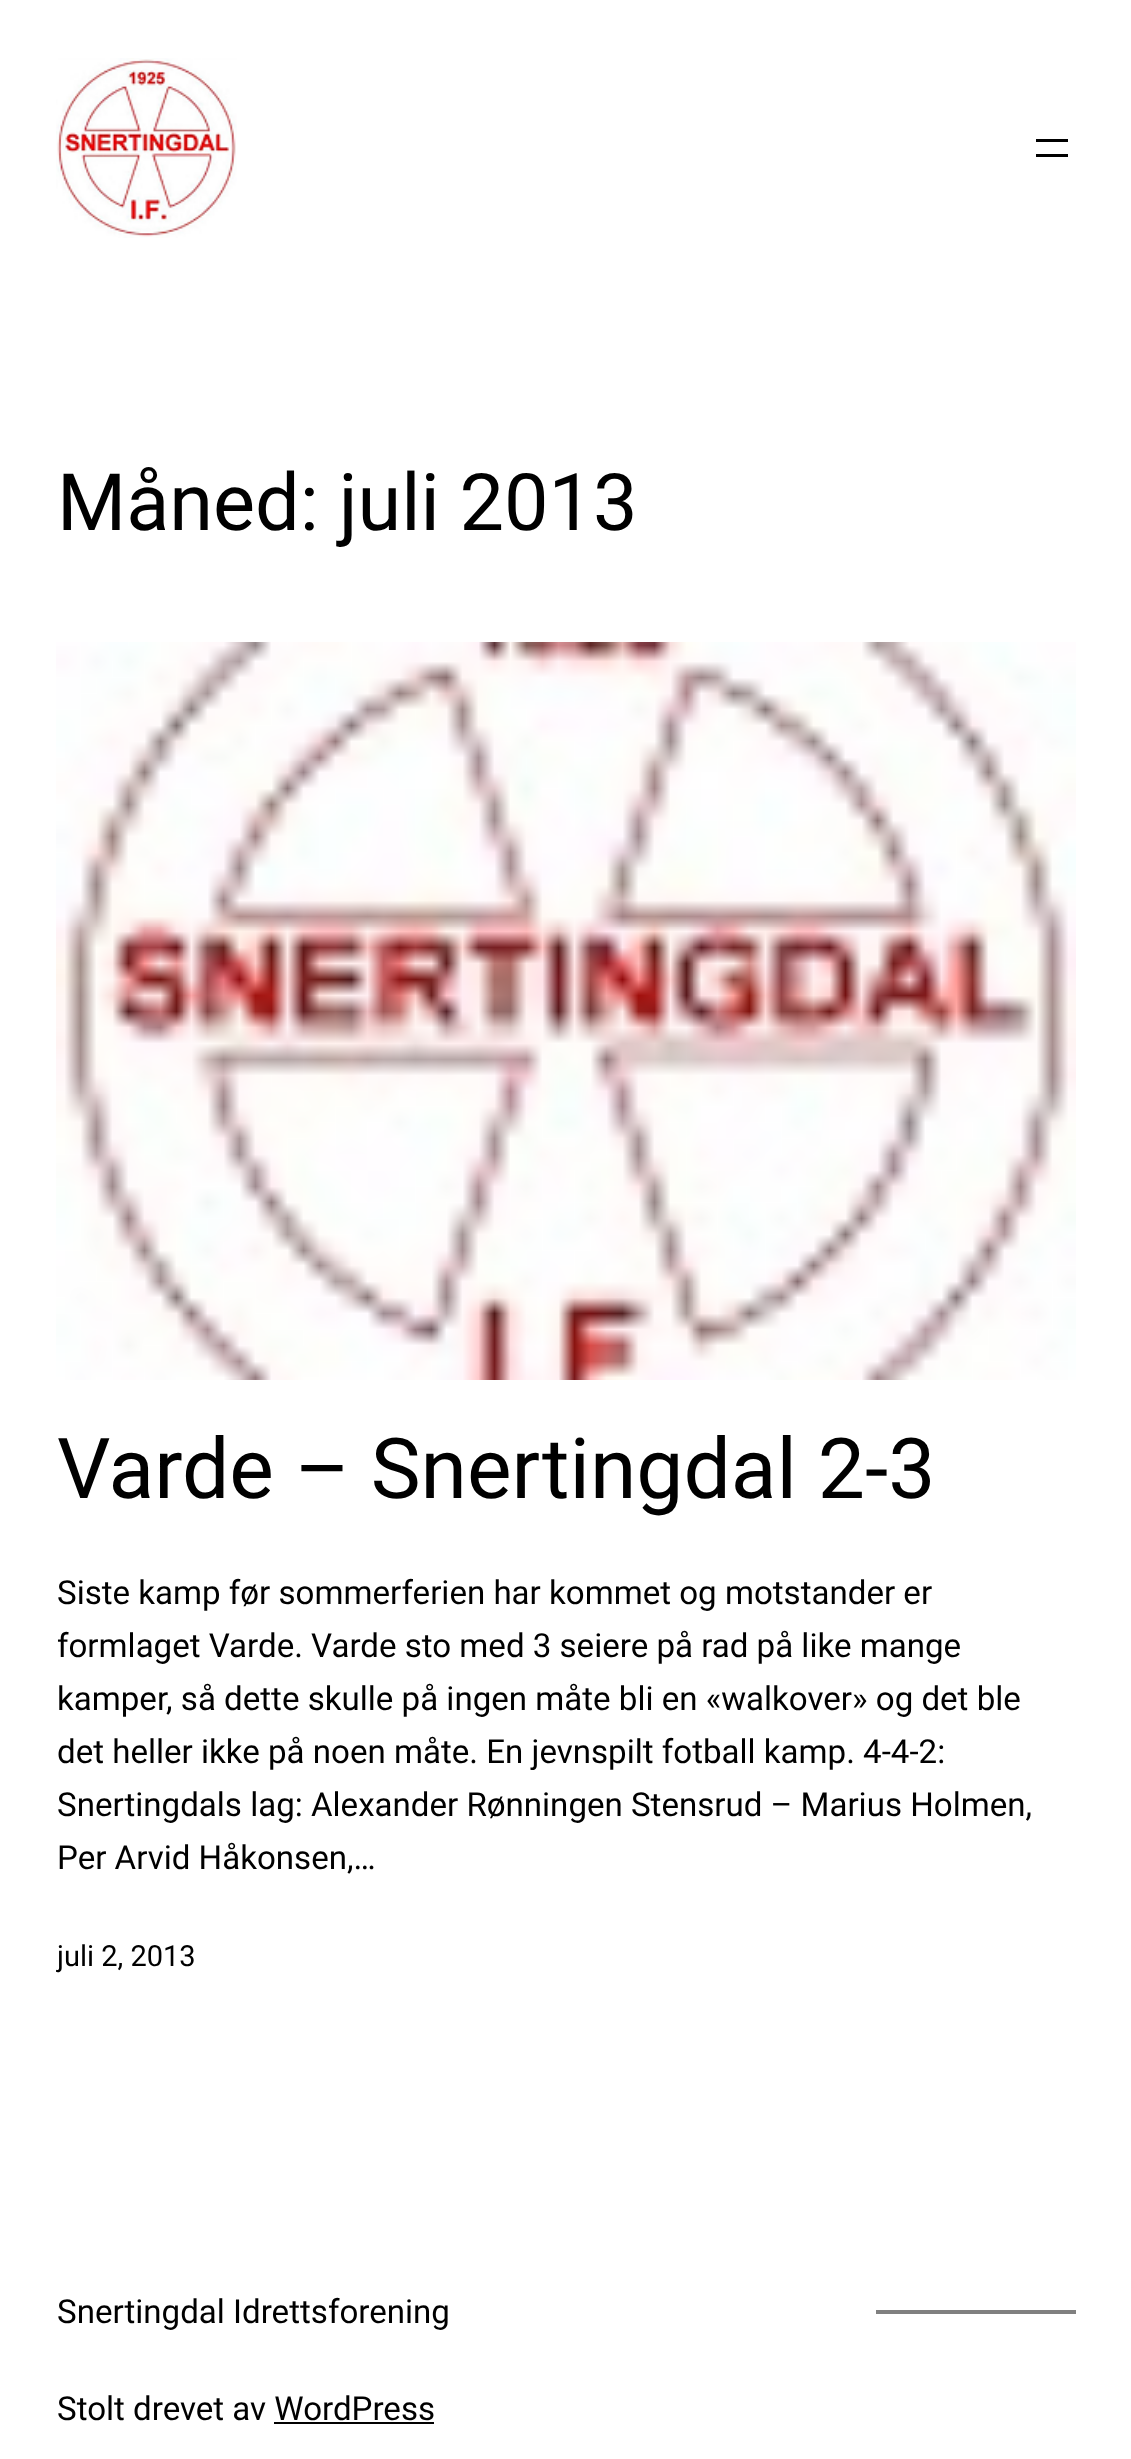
<svg xmlns="http://www.w3.org/2000/svg" width="1131" height="2459">
<rect width="100%" height="100%" fill="#fff"/>
<image x="56" y="58" width="181" height="180" href="media/1.png"/>
<rect x="1036" y="139" width="32" height="3" fill="#000"/>
<rect x="1036" y="154" width="32" height="3" fill="#000"/>
<text x="57" y="530" style="font-family:Roboto;font-size:79.25px;fill:#000">Måned: juli 2013</text>
<image x="56" y="642" width="1020" height="738" href="media/2.png"/>
<text x="57" y="1498" style="font-family:Roboto;font-size:84px;fill:#000">Varde – Snertingdal 2-3</text>
<text x="57" y="1604" style="font-family:Roboto;font-size:33.1px;fill:#000">Siste kamp før sommerferien har kommet og motstander er</text>
<text x="57" y="1657" style="font-family:Roboto;font-size:33.1px;fill:#000">formlaget Varde. Varde sto med 3 seiere på rad på like mange</text>
<text x="57" y="1710" style="font-family:Roboto;font-size:33.1px;fill:#000">kamper, så dette skulle på ingen måte bli en «walkover» og det ble</text>
<text x="57" y="1763" style="font-family:Roboto;font-size:33.1px;fill:#000">det heller ikke på noen måte. En jevnspilt fotball kamp. 4-4-2:</text>
<text x="57" y="1816" style="font-family:Roboto;font-size:33.1px;fill:#000">Snertingdals lag: Alexander Rønningen Stensrud – Marius Holmen,</text>
<text x="57" y="1869" style="font-family:Roboto;font-size:33.1px;fill:#000">Per Arvid Håkonsen,…</text>
<text x="57" y="1966" style="font-family:Roboto;font-size:29px;fill:#000">juli 2, 2013</text>
<text x="57" y="2323" style="font-family:Roboto;font-size:33.1px;fill:#000">Snertingdal Idrettsforening</text>
<rect x="876" y="2310" width="200" height="4" fill="#808080"/>
<text x="57" y="2420" style="font-family:Roboto;font-size:33.1px;fill:#000">Stolt drevet av WordPress</text>
<rect x="274" y="2422" width="160" height="2" fill="#000"/>
</svg>
